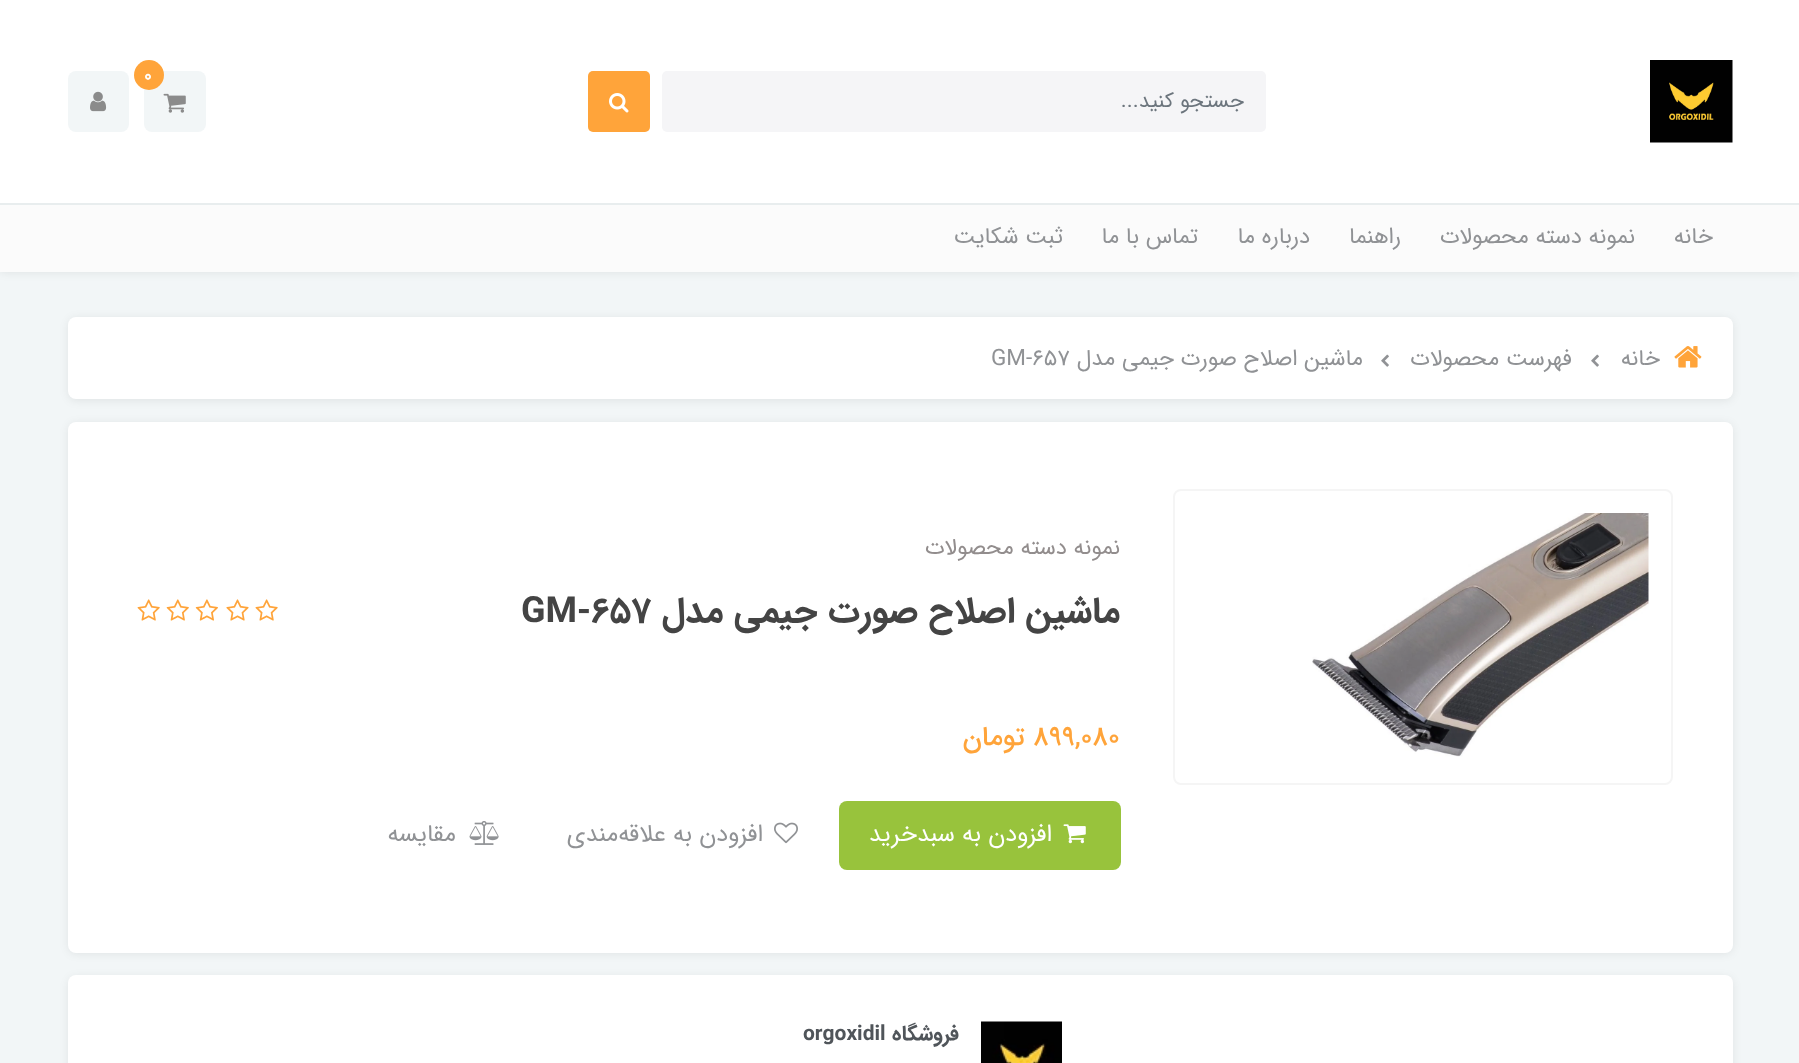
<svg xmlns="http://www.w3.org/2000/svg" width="1799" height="1063">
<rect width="100%" height="100%" fill="#f2f6f7"/>
<rect y="2" width="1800" height="271" fill="#00000012" filter="blur(4px)"/>
<rect width="1799" height="203" fill="#fff"/>
<image x="1650" y="60" width="83" height="83" href="media/1.png"/>
<rect x="144" y="71" width="62" height="61" rx="8" fill="#f2f6f7"/>
<circle cx="149" cy="75" r="15" fill="#ffa43a"/>
<text x="144" y="81" style="font-family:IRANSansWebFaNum;font-size:18px;font-weight:bold;fill:#fff">0</text>
<image x="163" y="93" width="23" height="20" href="media/2.png"/>
<rect x="68" y="71" width="61" height="61" rx="8" fill="#f2f6f7"/>
<image x="90" y="91" width="17" height="21" href="media/3.png"/>
<rect x="662" y="71" width="604" height="61" rx="5" fill="#f5f5f7"/>
<text x="1244" y="107" style="font-family:IRANSansWebFaNum;font-size:21px;direction:rtl;fill:#6c757d">جستجو کنید...</text>
<rect x="588" y="71" width="62" height="61" rx="5" fill="#ffa43a"/>
<image x="609" y="93" width="20" height="20" href="media/4.png"/>
<rect y="205" width="1799" height="67" fill="#fbfbfb"/>
<rect y="203" width="1799" height="2" fill="#e8edee"/>
<text x="1713" y="243" style="font-family:IRANSansWebFaNum;font-size:22.5px;direction:rtl;fill:#909295">خانه</text>
<text x="1635" y="243" style="font-family:IRANSansWebFaNum;font-size:22.5px;direction:rtl;fill:#909295">نمونه دسته محصولات</text>
<text x="1401" y="243" style="font-family:IRANSansWebFaNum;font-size:22.5px;direction:rtl;fill:#909295">راهنما</text>
<text x="1310" y="243" style="font-family:IRANSansWebFaNum;font-size:22.5px;direction:rtl;fill:#909295">درباره ما</text>
<text x="1198" y="243" style="font-family:IRANSansWebFaNum;font-size:22.5px;direction:rtl;fill:#909295">تماس با ما</text>
<text x="1063" y="243" style="font-family:IRANSansWebFaNum;font-size:22.5px;direction:rtl;fill:#909295">ثبت شکایت</text>
<rect x="68" y="318" width="1665" height="83" rx="8" fill="#00000012" filter="blur(4px)"/>
<rect x="68" y="317" width="1665" height="82" rx="8" fill="#fff"/>
<image x="1674" y="346" width="28" height="22" href="media/5.png"/>
<text x="1660" y="365" style="font-family:IRANSansWebFaNum;font-size:22.5px;direction:rtl;fill:#909295">خانه</text>
<image x="1591" y="354" width="8" height="13" href="media/6.png"/>
<text x="1572" y="365" style="font-family:IRANSansWebFaNum;font-size:22.5px;direction:rtl;fill:#909295">فهرست محصولات</text>
<image x="1381" y="354" width="8" height="13" href="media/6.png"/>
<text x="1363" y="365" style="font-family:IRANSansWebFaNum;font-size:22.5px;direction:rtl;fill:#909295">ماشین اصلاح صورت جیمی مدل</text>
<text x="991" y="365" style="font-family:IRANSansWebFaNum;font-size:22.5px;fill:#909295">GM-657</text>
<rect x="68" y="423" width="1665" height="531" rx="8" fill="#00000012" filter="blur(4px)"/>
<rect x="68" y="422" width="1665" height="531" rx="8" fill="#fff"/>
<rect x="1174" y="490" width="498" height="294" rx="7" fill="none" stroke="#f5f5f5" stroke-width="2"/>
<image x="1312" y="513" width="337" height="244" href="media/7.png"/>
<text x="1120" y="554" style="font-family:IRANSansWebFaNum;font-size:22.5px;direction:rtl;fill:#928d8d">نمونه دسته محصولات</text>
<text x="1120" y="622" style="font-family:IRANSansWebFaNum;font-size:36px;font-weight:bold;direction:rtl;fill:#444">ماشین اصلاح صورت جیمی مدل</text>
<text x="521" y="622" style="font-family:IRANSansWebFaNum;font-size:36px;font-weight:bold;fill:#444">GM-657</text>
<image x="255" y="599" width="23" height="22" href="media/8.png"/>
<image x="226" y="599" width="23" height="22" href="media/9.png"/>
<image x="195" y="599" width="23" height="22" href="media/10.png"/>
<image x="166" y="599" width="23" height="22" href="media/11.png"/>
<image x="137" y="599" width="23" height="22" href="media/12.png"/>
<text x="1033" y="745" style="font-family:IRANSansWebFaNum;font-size:27px;font-weight:500;fill:#ffa43a">899,080</text>
<text x="1025" y="745" style="font-family:IRANSansWebFaNum;font-size:27px;font-weight:500;direction:rtl;fill:#ffa43a">تومان</text>
<rect x="839" y="801" width="282" height="69" rx="8" fill="#98c33c"/>
<image x="1063" y="824" width="23" height="20" href="media/13.png"/>
<text x="1052" y="841" style="font-family:IRANSansWebFaNum;font-size:24px;direction:rtl;fill:#fff">افزودن به سبدخرید</text>
<image x="774" y="822" width="24" height="22" href="media/14.png"/>
<text x="763" y="841" style="font-family:IRANSansWebFaNum;font-size:24px;direction:rtl;fill:#909295">افزودن به علاقه‌مندی</text>
<image x="469" y="821" width="30" height="24" href="media/15.png"/>
<text x="456" y="841" style="font-family:IRANSansWebFaNum;font-size:24px;direction:rtl;fill:#909295">مقایسه</text>
<rect x="68" y="977" width="1665" height="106" rx="8" fill="#00000012" filter="blur(4px)"/>
<rect x="68" y="975" width="1665" height="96" rx="8" fill="#fff"/>
<image x="981" y="1021" width="81" height="42" href="media/16.png"/>
<text x="959" y="1040" style="font-family:IRANSansWebFaNum;font-size:21px;font-weight:bold;direction:rtl;fill:#50555a">فروشگاه</text>
<text x="803" y="1040" style="font-family:IRANSansWebFaNum;font-size:21px;font-weight:bold;fill:#50555a">orgoxidil</text>
</svg>
